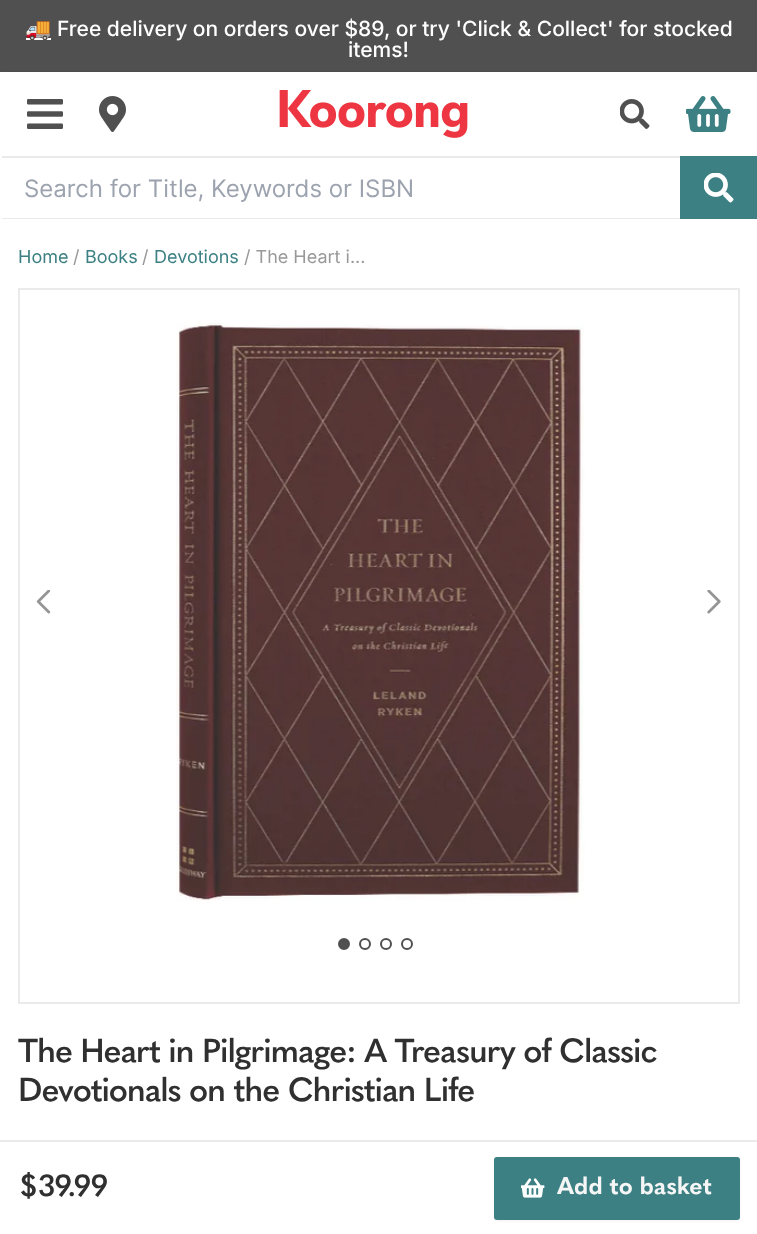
<svg xmlns="http://www.w3.org/2000/svg" width="757" height="1234">
<defs>
<clipPath id="clip1"><rect x="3" y="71" width="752" height="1"/></clipPath>
</defs>
<rect width="100%" height="100%" fill="#fff"/>
<rect width="757" height="72" fill="#505050"/>
<rect x="26" y="38" width="25" height="2" fill="#fff"/>
<text x="25" y="36" style="font-family:Noto Color Emoji;font-size:21px;fill:#fff">🚚</text>
<text x="57" y="36" style="font-family:Inter;font-size:21px;font-weight:500;fill:#fff">Free delivery on orders over $89, or try 'Click &amp; Collect' for stocked</text>
<text x="348" y="57" style="font-family:Inter;font-size:21px;font-weight:500;fill:#fff">items!</text>
<g clip-path="url(#clip1)">
<rect y="74" width="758" height="84" fill="#0000001a" filter="blur(4px)"/>
</g>
<image x="27" y="99" width="36" height="30" href="media/1.png"/>
<image x="99" y="96" width="27" height="36" href="media/2.png"/>
<image x="279" y="90" width="189" height="48" href="media/3.png"/>
<image x="620" y="99" width="30" height="30" href="media/4.png"/>
<image x="686" y="96" width="45" height="36" href="media/5.png"/>
<rect y="156" width="680" height="7" fill="#fff"/>
<rect x="2" y="156" width="678" height="2" fill="#eaeaea"/>
<rect x="2" y="218" width="678" height="1" fill="#eaeaea"/>
<text x="24" y="197" style="font-family:'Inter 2';font-size:24px;fill:#9ca3af">Search for Title, Keywords or ISBN</text>
<rect x="680" y="156" width="77" height="63" fill="#3c8083"/>
<image x="704" y="173" width="30" height="30" href="media/6.png"/>
<text x="18" y="263" style="font-family:Inter;font-size:18px;fill:#3c8083">Home</text>
<text x="73" y="263" style="font-family:Inter;font-size:18px;fill:#999">/</text>
<text x="85" y="263" style="font-family:Inter;font-size:18px;fill:#3c8083">Books</text>
<text x="142" y="263" style="font-family:Inter;font-size:18px;fill:#999">/</text>
<text x="154" y="263" style="font-family:Inter;font-size:18px;fill:#3c8083">Devotions</text>
<text x="244" y="263" style="font-family:Inter;font-size:18px;fill:#999">/ The Heart i...</text>
<rect x="19" y="289" width="720" height="714" fill="none" stroke="#eaeaea" stroke-width="2"/>
<image x="36" y="590" width="15" height="24" href="media/7.png"/>
<image x="176" y="323" width="409" height="578" href="media/8.png"/>
<circle cx="344" cy="944" r="5" fill="#505050" stroke="#505050" stroke-width="2"/>
<circle cx="365" cy="944" r="5" fill="none" stroke="#505050" stroke-width="2"/>
<circle cx="386" cy="944" r="5" fill="none" stroke="#505050" stroke-width="2"/>
<circle cx="407" cy="944" r="5" fill="none" stroke="#505050" stroke-width="2"/>
<image x="707" y="590" width="14" height="24" href="media/9.png"/>
<text x="18" y="1062" style="font-family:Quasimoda;font-size:33px;font-weight:600;letter-spacing:-1.1px;fill:#303030">The Heart in Pilgrimage: A Treasury of Classic</text>
<text x="18" y="1101" style="font-family:Quasimoda;font-size:33px;font-weight:600;letter-spacing:-1.1px;fill:#303030">Devotionals on the Christian Life</text>
<rect y="1140" width="757" height="2" fill="#eaeaea"/>
<text x="18" y="1196" style="font-family:Quasimoda;font-size:30px;font-weight:600;letter-spacing:-0.75px;fill:#303030">$39.99</text>
<rect x="494" y="1158" width="246" height="63" rx="3" fill="#0000000d" filter="blur(1.5px)"/>
<rect x="494" y="1157" width="246" height="63" rx="3" fill="#3c8083"/>
<image x="521" y="1178" width="24" height="20" href="media/10.png"/>
<text x="557" y="1194" style="font-family:Quasimoda;font-size:24px;font-weight:bold;fill:#f6f6f6">Add to basket</text>
</svg>
